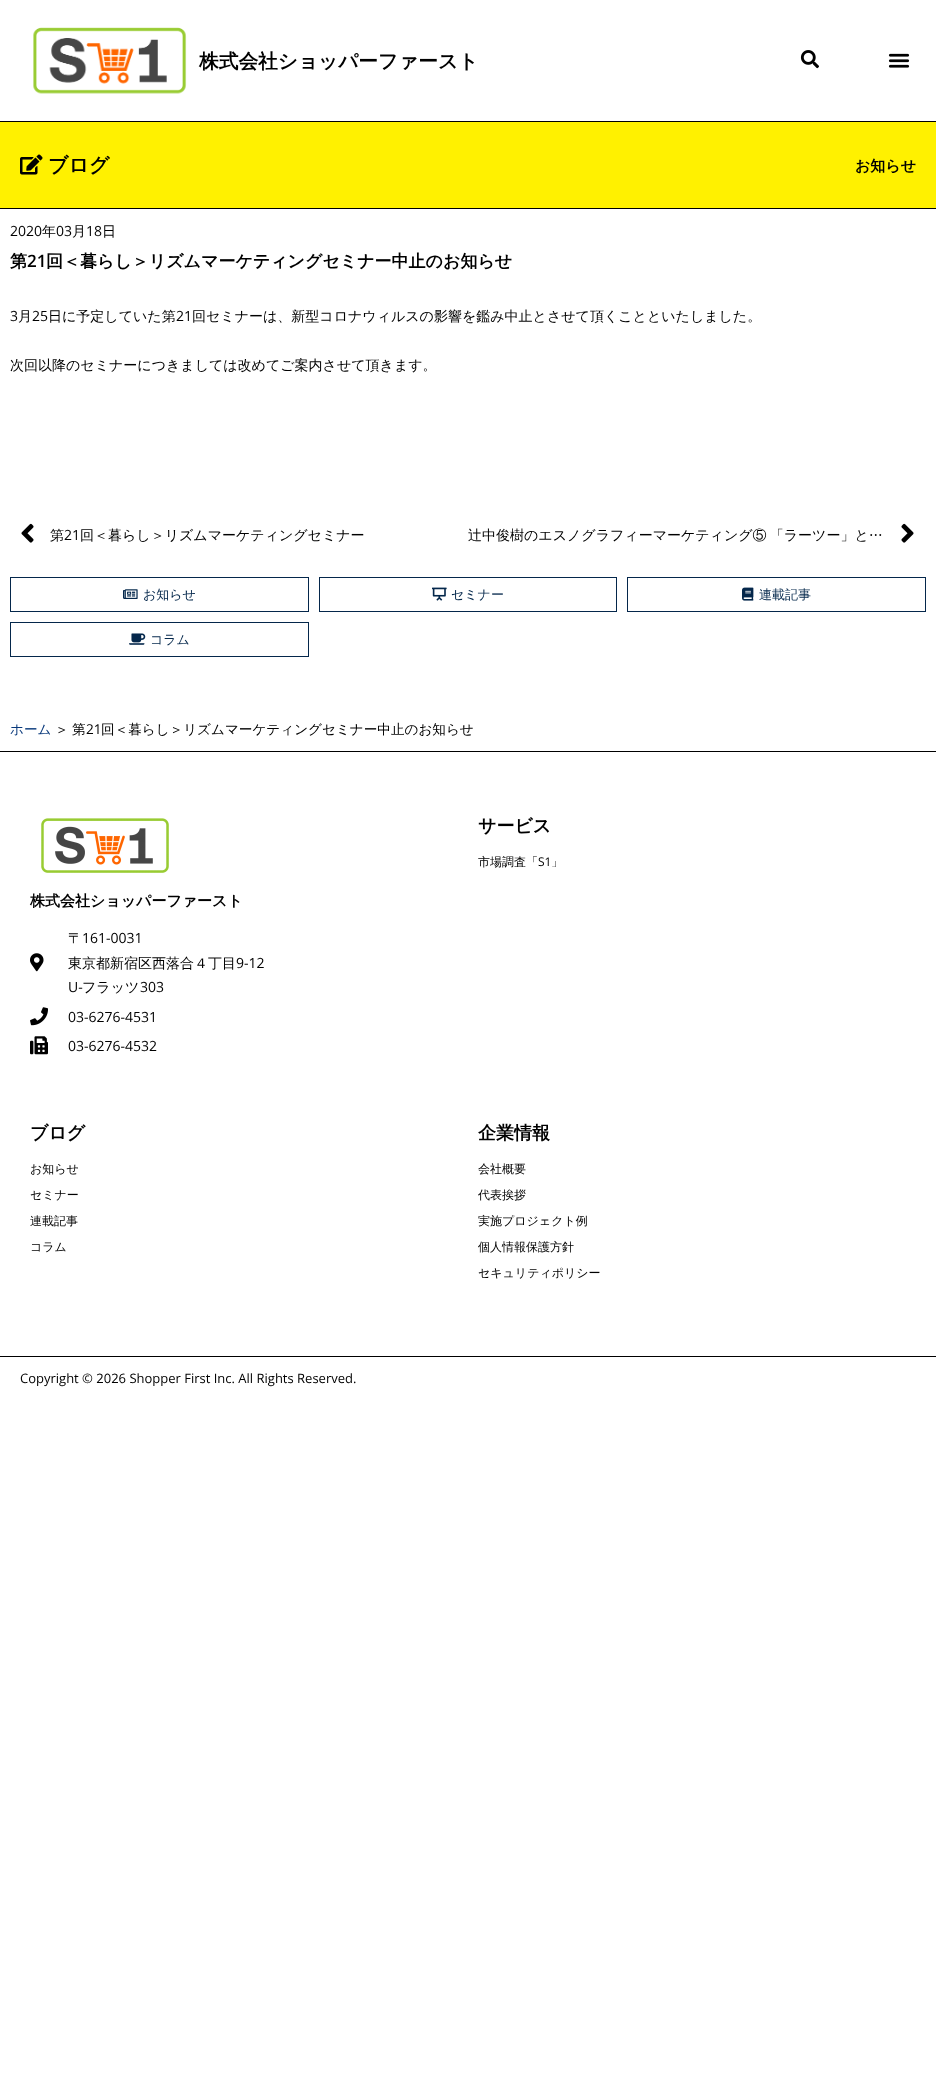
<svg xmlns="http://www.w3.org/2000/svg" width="936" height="2081">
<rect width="100%" height="100%" fill="#fff"/>
<rect y="121" width="936" height="1" fill="#000"/>
<image x="33" y="27" width="154" height="67" href="media/1.png"/>
<text x="199" y="68" style="font-family:WenQuanYi Zen Hei;font-size:19.7px;font-weight:bold;fill:#000">株式会社ショッパーファースト</text>
<image x="800" y="50" width="19" height="19" href="media/2.png"/>
<image x="888" y="53" width="22" height="15" href="media/3.png"/>
<rect y="122" width="936" height="86" fill="#fff100"/>
<rect y="208" width="936" height="1" fill="#000"/>
<image x="20" y="154" width="23" height="21" href="media/4.png"/>
<text x="48" y="172" style="font-family:WenQuanYi Zen Hei;font-size:20px;font-weight:bold;fill:#000">ブログ</text>
<text x="855" y="171" style="font-family:WenQuanYi Zen Hei;font-size:15px;font-weight:bold;fill:#000">お知らせ</text>
<text x="10" y="236" style="font-family:Open Sans;font-size:14px;fill:#000">2020</text>
<text x="42" y="236" style="font-family:WenQuanYi Zen Hei;font-size:14px;font-weight:500;fill:#000">年</text>
<text x="56" y="236" style="font-family:Open Sans;font-size:14px;fill:#000">03</text>
<text x="72" y="236" style="font-family:WenQuanYi Zen Hei;font-size:14px;font-weight:500;fill:#000">月</text>
<text x="86" y="236" style="font-family:Open Sans;font-size:14px;fill:#000">18</text>
<text x="102" y="236" style="font-family:WenQuanYi Zen Hei;font-size:14px;font-weight:500;fill:#000">日</text>
<text x="10" y="267" style="font-family:WenQuanYi Zen Hei;font-size:17px;font-weight:bold;fill:#000">第</text>
<text x="27" y="267" style="font-family:Open Sans;font-size:17px;font-weight:600;fill:#000">21</text>
<text x="46" y="267" style="font-family:WenQuanYi Zen Hei;font-size:17px;font-weight:bold;fill:#000">回＜暮らし＞リズムマーケティングセミナー中止のお知らせ</text>
<text x="10" y="321" style="font-family:Open Sans;font-size:14px;fill:#000">3</text>
<text x="18" y="321" style="font-family:WenQuanYi Zen Hei;font-size:14px;font-weight:500;fill:#000">月</text>
<text x="32" y="321" style="font-family:Open Sans;font-size:14px;fill:#000">25</text>
<text x="48" y="321" style="font-family:WenQuanYi Zen Hei;font-size:14px;font-weight:500;fill:#000">日に予定していた第</text>
<text x="176" y="321" style="font-family:Open Sans;font-size:14px;fill:#000">21</text>
<text x="192" y="321" style="font-family:WenQuanYi Zen Hei;font-size:14px;font-weight:500;fill:#000">回セミナーは、新型コロナウィルスの影響を鑑み中止とさせて頂くことといたしました。</text>
<text x="10" y="370" style="font-family:WenQuanYi Zen Hei;font-size:14px;font-weight:500;fill:#000">次回以降のセミナーにつきましては改めてご案内させて頂きます。</text>
<image x="21" y="523" width="13" height="20" href="media/5.png"/>
<text x="50" y="540" style="font-family:WenQuanYi Zen Hei;font-size:14px;font-weight:500;fill:#000">第</text>
<text x="64" y="540" style="font-family:Open Sans;font-size:14px;fill:#000">21</text>
<text x="80" y="540" style="font-family:WenQuanYi Zen Hei;font-size:14px;font-weight:500;fill:#000">回＜暮らし＞リズムマーケティングセミナー</text>
<text x="468" y="540" word-spacing="-1" style="font-family:WenQuanYi Zen Hei;font-size:14px;font-weight:500;fill:#000">辻中俊樹のエスノグラフィーマーケティング⑤ 「ラーツー」と…</text>
<image x="901" y="523" width="13" height="20" href="media/6.png"/>
<rect x="10.5" y="577.5" width="298" height="34" fill="none" stroke="#04274b"/>
<image x="123" y="589" width="15" height="10" href="media/7.png"/>
<text x="143" y="599" style="font-family:WenQuanYi Zen Hei;font-size:13px;font-weight:500;fill:#04274b">お知らせ</text>
<rect x="319.5" y="577.5" width="297" height="34" fill="none" stroke="#04274b"/>
<image x="432" y="587" width="15" height="14" href="media/8.png"/>
<text x="451" y="599" style="font-family:WenQuanYi Zen Hei;font-size:13px;font-weight:500;fill:#04274b">セミナー</text>
<rect x="627.5" y="577.5" width="298" height="34" fill="none" stroke="#04274b"/>
<image x="742" y="587" width="12" height="14" href="media/9.png"/>
<text x="759" y="599" style="font-family:WenQuanYi Zen Hei;font-size:13px;font-weight:500;fill:#04274b">連載記事</text>
<rect x="10.5" y="622.5" width="298" height="34" fill="none" stroke="#04274b"/>
<image x="129" y="633" width="17" height="12" href="media/10.png"/>
<text x="150" y="644" style="font-family:WenQuanYi Zen Hei;font-size:13px;font-weight:500;fill:#04274b">コラム</text>
<text x="10" y="734" style="font-family:WenQuanYi Zen Hei;font-size:13.6px;font-weight:500;fill:#06377a">ホーム</text>
<text x="55" y="734" style="font-family:WenQuanYi Zen Hei;font-size:13.6px;font-weight:500;fill:#000">＞</text>
<text x="72" y="734" style="font-family:WenQuanYi Zen Hei;font-size:13.6px;font-weight:500;fill:#000">第</text>
<text x="86" y="734" style="font-family:Open Sans;font-size:13.6px;fill:#000">21</text>
<text x="101" y="734" style="font-family:WenQuanYi Zen Hei;font-size:13.6px;font-weight:500;fill:#000">回＜暮らし＞リズムマーケティングセミナー中止のお知らせ</text>
<rect y="751" width="936" height="1" fill="#000"/>
<text x="478" y="832" style="font-family:WenQuanYi Zen Hei;font-size:18px;font-weight:bold;fill:#000">サービス</text>
<text x="478" y="866" style="font-family:WenQuanYi Zen Hei;font-size:12px;font-weight:500;fill:#000">市場調査「</text>
<text x="538" y="866" style="font-family:Open Sans;font-size:12px;fill:#000">S1</text>
<text x="551" y="866" style="font-family:WenQuanYi Zen Hei;font-size:12px;font-weight:500;fill:#000">」</text>
<image x="41" y="818" width="128" height="55" href="media/11.png"/>
<text x="30" y="906" style="font-family:WenQuanYi Zen Hei;font-size:15px;font-weight:bold;fill:#000">株式会社ショッパーファースト</text>
<image x="30" y="953" width="14" height="19" href="media/12.png"/>
<text x="68" y="943" style="font-family:WenQuanYi Zen Hei;font-size:14px;font-weight:500;fill:#000">〒</text>
<text x="82" y="943" style="font-family:Open Sans;font-size:14px;fill:#000">161-0031</text>
<text x="68" y="968" style="font-family:WenQuanYi Zen Hei;font-size:14px;font-weight:500;fill:#000">東京都新宿区西落合４丁目</text>
<text x="236" y="968" style="font-family:Open Sans;font-size:14px;fill:#000">9-12</text>
<text x="68" y="992" style="font-family:Open Sans;font-size:14px;fill:#000">U-</text>
<text x="82" y="992" style="font-family:WenQuanYi Zen Hei;font-size:14px;font-weight:500;fill:#000">フラッツ</text>
<text x="140" y="992" style="font-family:Open Sans;font-size:14px;fill:#000">303</text>
<image x="30" y="1007" width="18" height="19" href="media/13.png"/>
<text x="68" y="1022" style="font-family:Open Sans;font-size:14px;fill:#000">03-6276-4531</text>
<image x="30" y="1036" width="18" height="19" href="media/14.png"/>
<text x="68" y="1051" style="font-family:Open Sans;font-size:14px;fill:#000">03-6276-4532</text>
<text x="30" y="1139" style="font-family:WenQuanYi Zen Hei;font-size:18px;font-weight:bold;fill:#000">ブログ</text>
<text x="30" y="1173" style="font-family:WenQuanYi Zen Hei;font-size:12px;font-weight:500;fill:#000">お知らせ</text>
<text x="30" y="1199" style="font-family:WenQuanYi Zen Hei;font-size:12px;font-weight:500;fill:#000">セミナー</text>
<text x="30" y="1225" style="font-family:WenQuanYi Zen Hei;font-size:12px;font-weight:500;fill:#000">連載記事</text>
<text x="30" y="1251" style="font-family:WenQuanYi Zen Hei;font-size:12px;font-weight:500;fill:#000">コラム</text>
<text x="478" y="1139" style="font-family:WenQuanYi Zen Hei;font-size:18px;font-weight:bold;fill:#000">企業情報</text>
<text x="478" y="1173" style="font-family:WenQuanYi Zen Hei;font-size:12px;font-weight:500;fill:#000">会社概要</text>
<text x="478" y="1199" style="font-family:WenQuanYi Zen Hei;font-size:12px;font-weight:500;fill:#000">代表挨拶</text>
<text x="478" y="1225" style="font-family:WenQuanYi Zen Hei;font-size:12px;font-weight:500;fill:#000">実施プロジェクト例</text>
<text x="478" y="1251" style="font-family:WenQuanYi Zen Hei;font-size:12px;font-weight:500;fill:#000">個人情報保護方針</text>
<text x="478" y="1277" style="font-family:WenQuanYi Zen Hei;font-size:12px;font-weight:500;fill:#000">セキュリティポリシー</text>
<rect y="1356" width="936" height="1" fill="#000"/>
<text x="20" y="1383" style="font-family:Open Sans;font-size:13px;fill:#000">Copyright © 2026 Shopper First Inc. All Rights Reserved.</text>
</svg>
